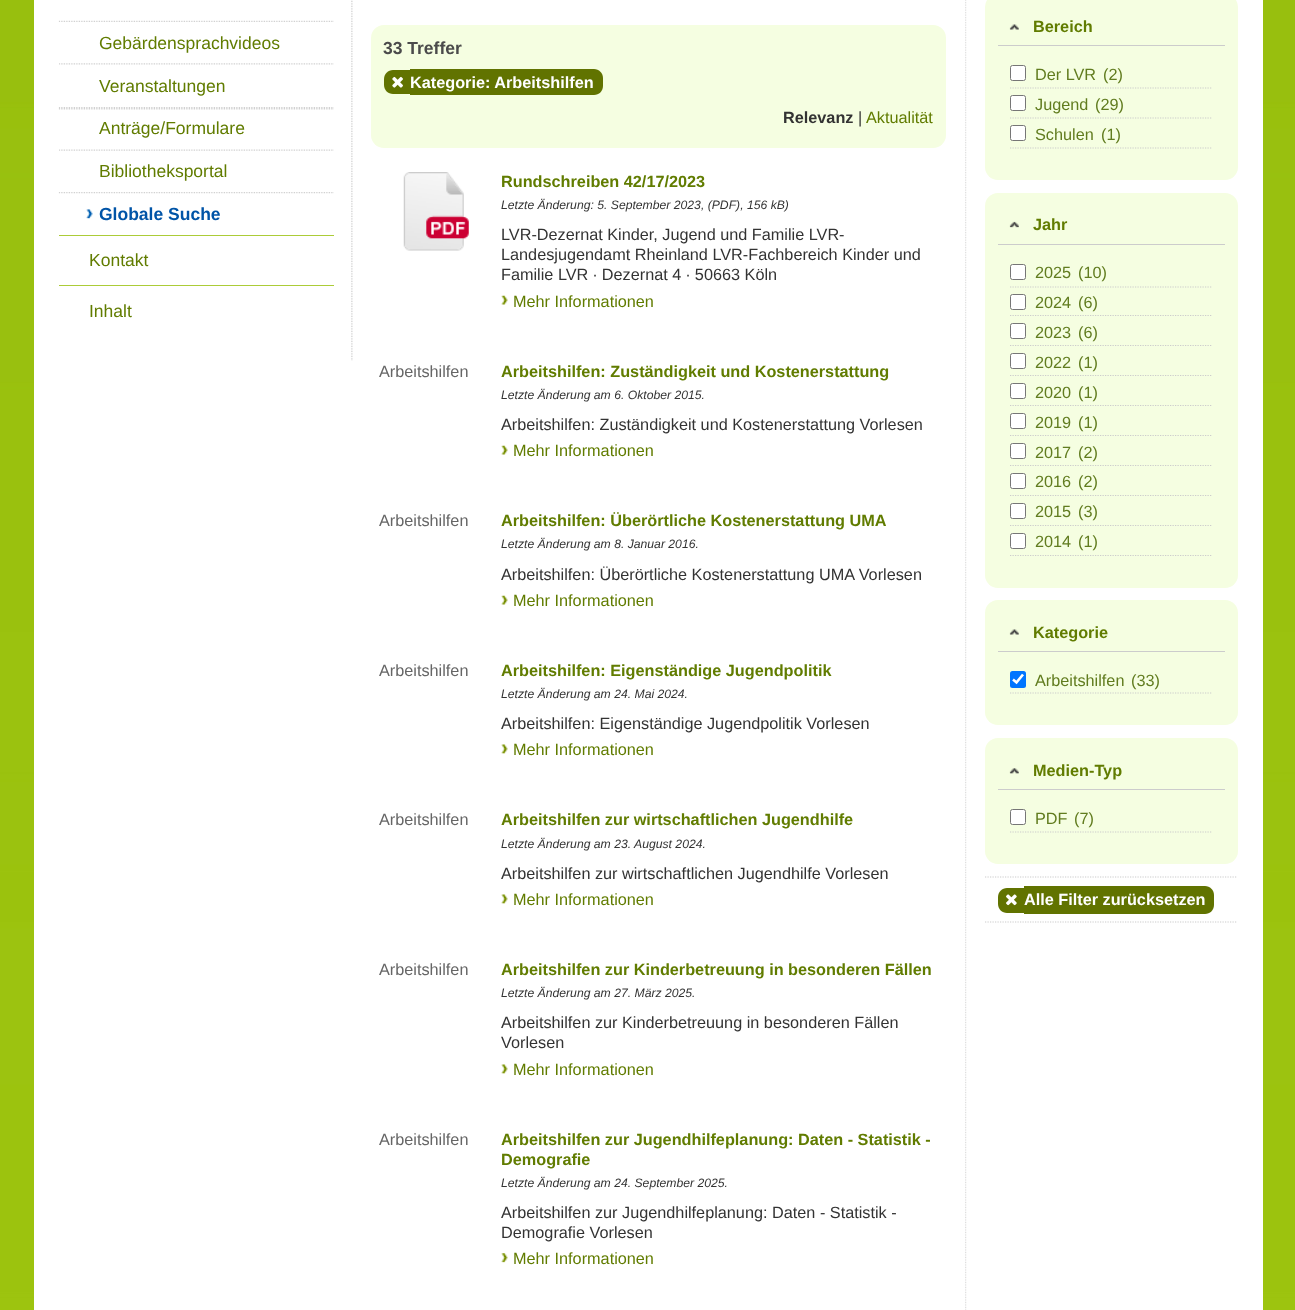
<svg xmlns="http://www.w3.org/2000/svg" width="1295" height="1310">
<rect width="100%" height="100%" fill="#fff"/>
<image x="0" y="0" width="1295" height="1310" href="media/1.png"/>
<rect x="34" width="1229" height="1310" fill="#fff"/>
<image x="965" y="0" width="2" height="1310" href="media/2.png"/>
<image x="351" y="0" width="2" height="361" href="media/3.png"/>
<image x="58" y="20" width="276" height="2" href="media/4.png"/>
<text x="99" y="49" style="font-family:Liberation Sans;font-size:17.5px;fill:#617c00">Gebärdensprachvideos</text>
<image x="59" y="63" width="275" height="2" href="media/5.png"/>
<text x="99" y="92" style="font-family:Liberation Sans;font-size:17.5px;fill:#617c00">Veranstaltungen</text>
<image x="58" y="107" width="276" height="3" href="media/6.png"/>
<text x="99" y="134" style="font-family:Liberation Sans;font-size:17.5px;fill:#617c00">Anträge/Formulare</text>
<image x="59" y="149" width="275" height="2" href="media/7.png"/>
<text x="99" y="177" style="font-family:Liberation Sans;font-size:17.5px;fill:#617c00">Bibliotheksportal</text>
<image x="58" y="192" width="276" height="2" href="media/8.png"/>
<image x="86" y="209" width="7" height="10" href="media/9.png"/>
<text x="99" y="220" style="font-family:Liberation Sans;font-size:17.5px;font-weight:bold;fill:#0054a7">Globale Suche</text>
<rect x="59" y="235" width="275" height="1" fill="#accc38"/>
<text x="89" y="266" style="font-family:Liberation Sans;font-size:17.5px;fill:#617c00">Kontakt</text>
<rect x="59" y="285" width="275" height="1" fill="#accc38"/>
<text x="89" y="317" style="font-family:Liberation Sans;font-size:17.5px;fill:#617c00">Inhalt</text>
<rect x="371" y="25" width="575" height="123" rx="13" fill="#f5fee1"/>
<text x="383" y="54" style="font-family:Liberation Sans;font-size:17.5px;font-weight:bold;fill:#4b4b4b">33 Treffer</text>
<path d="M393 70h17v24h-17c-5 0-9-4-9-9v-6c0-5 4-9 9-9z" fill="#617300"/>
<path d="M410 69h184c5 0 9 4 9 9v8c0 5-4 9-9 9h-184z" fill="#617300"/>
<image x="392" y="76" width="11" height="12" href="media/10.png"/>
<text x="410" y="88" style="font-family:Liberation Sans;font-size:16.25px;font-weight:bold;fill:#fff">Kategorie: Arbeitshilfen</text>
<text x="783" y="123" style="font-family:Liberation Sans;font-size:16.25px;font-weight:bold;fill:#333">Relevanz</text>
<text x="858" y="123" style="font-family:Liberation Sans;font-size:16.25px;fill:#333">|</text>
<text x="866" y="123" style="font-family:Liberation Sans;font-size:16.25px;fill:#617c00">Aktualität</text>
<image x="403" y="172" width="66" height="79" href="media/11.png"/>
<text x="501" y="187" style="font-family:Liberation Sans;font-size:16.25px;font-weight:bold;fill:#617c00">Rundschreiben 42/17/2023</text>
<text x="501" y="209" style="font-family:Liberation Sans;font-size:12.2px;font-style:italic;fill:#333">Letzte Änderung: 5. September 2023, (PDF), 156 kB)</text>
<text x="501" y="240" style="font-family:Liberation Sans;font-size:16.25px;fill:#333">LVR-Dezernat Kinder, Jugend und Familie LVR-</text>
<text x="501" y="260" style="font-family:Liberation Sans;font-size:16.25px;fill:#333">Landesjugendamt Rheinland LVR-Fachbereich Kinder und</text>
<text x="501" y="280" style="font-family:Liberation Sans;font-size:16.25px;fill:#333">Familie LVR ∙ Dezernat 4 ∙ 50663 Köln</text>
<image x="501" y="295" width="7" height="10" href="media/12.png"/>
<text x="513" y="307" style="font-family:Liberation Sans;font-size:16.25px;fill:#617c00">Mehr Informationen</text>
<text x="379" y="377" style="font-family:Liberation Sans;font-size:16.25px;fill:#666">Arbeitshilfen</text>
<text x="501" y="377" style="font-family:Liberation Sans;font-size:16.25px;font-weight:bold;fill:#617c00">Arbeitshilfen: Zuständigkeit und Kostenerstattung</text>
<text x="501" y="399" style="font-family:Liberation Sans;font-size:12.2px;font-style:italic;fill:#333">Letzte Änderung am 6. Oktober 2015.</text>
<text x="501" y="430" style="font-family:Liberation Sans;font-size:16.25px;fill:#333">Arbeitshilfen: Zuständigkeit und Kostenerstattung Vorlesen</text>
<image x="501" y="445" width="7" height="10" href="media/12.png"/>
<text x="513" y="456" style="font-family:Liberation Sans;font-size:16.25px;fill:#617c00">Mehr Informationen</text>
<text x="379" y="526" style="font-family:Liberation Sans;font-size:16.25px;fill:#666">Arbeitshilfen</text>
<text x="501" y="526" style="font-family:Liberation Sans;font-size:16.25px;font-weight:bold;fill:#617c00">Arbeitshilfen: Überörtliche Kostenerstattung UMA</text>
<text x="501" y="548" style="font-family:Liberation Sans;font-size:12.2px;font-style:italic;fill:#333">Letzte Änderung am 8. Januar 2016.</text>
<text x="501" y="580" style="font-family:Liberation Sans;font-size:16.25px;fill:#333">Arbeitshilfen: Überörtliche Kostenerstattung UMA Vorlesen</text>
<image x="501" y="595" width="7" height="10" href="media/12.png"/>
<text x="513" y="606" style="font-family:Liberation Sans;font-size:16.25px;fill:#617c00">Mehr Informationen</text>
<text x="379" y="676" style="font-family:Liberation Sans;font-size:16.25px;fill:#666">Arbeitshilfen</text>
<text x="501" y="676" style="font-family:Liberation Sans;font-size:16.25px;font-weight:bold;fill:#617c00">Arbeitshilfen: Eigenständige Jugendpolitik</text>
<text x="501" y="698" style="font-family:Liberation Sans;font-size:12.2px;font-style:italic;fill:#333">Letzte Änderung am 24. Mai 2024.</text>
<text x="501" y="729" style="font-family:Liberation Sans;font-size:16.25px;fill:#333">Arbeitshilfen: Eigenständige Jugendpolitik Vorlesen</text>
<image x="501" y="744" width="7" height="10" href="media/13.png"/>
<text x="513" y="755" style="font-family:Liberation Sans;font-size:16.25px;fill:#617c00">Mehr Informationen</text>
<text x="379" y="825" style="font-family:Liberation Sans;font-size:16.25px;fill:#666">Arbeitshilfen</text>
<text x="501" y="825" style="font-family:Liberation Sans;font-size:16.25px;font-weight:bold;fill:#617c00">Arbeitshilfen zur wirtschaftlichen Jugendhilfe</text>
<text x="501" y="848" style="font-family:Liberation Sans;font-size:12.2px;font-style:italic;fill:#333">Letzte Änderung am 23. August 2024.</text>
<text x="501" y="879" style="font-family:Liberation Sans;font-size:16.25px;fill:#333">Arbeitshilfen zur wirtschaftlichen Jugendhilfe Vorlesen</text>
<image x="501" y="894" width="7" height="10" href="media/13.png"/>
<text x="513" y="905" style="font-family:Liberation Sans;font-size:16.25px;fill:#617c00">Mehr Informationen</text>
<text x="379" y="975" style="font-family:Liberation Sans;font-size:16.25px;fill:#666">Arbeitshilfen</text>
<text x="501" y="975" style="font-family:Liberation Sans;font-size:16.25px;font-weight:bold;fill:#617c00">Arbeitshilfen zur Kinderbetreuung in besonderen Fällen</text>
<text x="501" y="997" style="font-family:Liberation Sans;font-size:12.2px;font-style:italic;fill:#333">Letzte Änderung am 27. März 2025.</text>
<text x="501" y="1028" style="font-family:Liberation Sans;font-size:16.25px;fill:#333">Arbeitshilfen zur Kinderbetreuung in besonderen Fällen</text>
<text x="501" y="1048" style="font-family:Liberation Sans;font-size:16.25px;fill:#333">Vorlesen</text>
<image x="501" y="1064" width="7" height="10" href="media/13.png"/>
<text x="513" y="1075" style="font-family:Liberation Sans;font-size:16.25px;fill:#617c00">Mehr Informationen</text>
<text x="379" y="1145" style="font-family:Liberation Sans;font-size:16.25px;fill:#666">Arbeitshilfen</text>
<text x="501" y="1145" style="font-family:Liberation Sans;font-size:16.25px;font-weight:bold;fill:#617c00">Arbeitshilfen zur Jugendhilfeplanung: Daten - Statistik -</text>
<text x="501" y="1165" style="font-family:Liberation Sans;font-size:16.25px;font-weight:bold;fill:#617c00">Demografie</text>
<text x="501" y="1187" style="font-family:Liberation Sans;font-size:12.2px;font-style:italic;fill:#333">Letzte Änderung am 24. September 2025.</text>
<text x="501" y="1218" style="font-family:Liberation Sans;font-size:16.25px;fill:#333">Arbeitshilfen zur Jugendhilfeplanung: Daten - Statistik -</text>
<text x="501" y="1238" style="font-family:Liberation Sans;font-size:16.25px;fill:#333">Demografie Vorlesen</text>
<image x="501" y="1253" width="7" height="10" href="media/14.png"/>
<text x="513" y="1264" style="font-family:Liberation Sans;font-size:16.25px;fill:#617c00">Mehr Informationen</text>
<rect x="985" y="-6" width="253" height="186" rx="13" fill="#f5fee1"/>
<rect x="998" y="45" width="227" height="1" fill="#ccc"/>
<image x="1009" y="24" width="10" height="6" href="media/15.png"/>
<text x="1033" y="32" style="font-family:Liberation Sans;font-size:16.25px;font-weight:bold;fill:#617c00">Bereich</text>
<path d="M1010 88h202.5" fill="none" stroke="#ccc" stroke-width="1.2" stroke-dasharray="1.25 1.25"/>
<rect x="1010.5" y="65.5" width="15" height="15" rx="2" fill="#fff" stroke="#767676"/>
<text x="1035" y="80" style="font-family:Liberation Sans;font-size:16.25px;fill:#617c1f">Der LVR</text>
<text x="1103" y="80" style="font-family:Liberation Sans;font-size:16.25px;fill:#617c1f">(2)</text>
<path d="M1010 118h202.5" fill="none" stroke="#ccc" stroke-width="1.2" stroke-dasharray="1.25 1.25"/>
<rect x="1010.5" y="95.5" width="15" height="15" rx="2" fill="#fff" stroke="#767676"/>
<text x="1035" y="110" style="font-family:Liberation Sans;font-size:16.25px;fill:#617c1f">Jugend</text>
<text x="1095" y="110" style="font-family:Liberation Sans;font-size:16.25px;fill:#617c1f">(29)</text>
<path d="M1010 148h202.5" fill="none" stroke="#ccc" stroke-width="1.2" stroke-dasharray="1.25 1.25"/>
<rect x="1010.5" y="125.5" width="15" height="15" rx="2" fill="#fff" stroke="#767676"/>
<text x="1035" y="140" style="font-family:Liberation Sans;font-size:16.25px;fill:#617c1f">Schulen</text>
<text x="1101" y="140" style="font-family:Liberation Sans;font-size:16.25px;fill:#617c1f">(1)</text>
<rect x="985" y="193" width="253" height="395" rx="13" fill="#f5fee1"/>
<rect x="998" y="244" width="227" height="1" fill="#ccc"/>
<image x="1009" y="221" width="10" height="7" href="media/16.png"/>
<text x="1033" y="230" style="font-family:Liberation Sans;font-size:16.25px;font-weight:bold;fill:#617c00">Jahr</text>
<path d="M1010 287h202.5" fill="none" stroke="#ccc" stroke-width="1.2" stroke-dasharray="1.25 1.25"/>
<rect x="1010.5" y="264.5" width="15" height="15" rx="2" fill="#fff" stroke="#767676"/>
<text x="1035" y="278" style="font-family:Liberation Sans;font-size:16.25px;fill:#617c1f">2025</text>
<text x="1078" y="278" style="font-family:Liberation Sans;font-size:16.25px;fill:#617c1f">(10)</text>
<path d="M1010 315.5h202.5" fill="none" stroke="#ccc" stroke-width="1.2" stroke-dasharray="1.25 1.25"/>
<rect x="1010.5" y="294.5" width="15" height="15" rx="2" fill="#fff" stroke="#767676"/>
<text x="1035" y="308" style="font-family:Liberation Sans;font-size:16.25px;fill:#617c1f">2024</text>
<text x="1078" y="308" style="font-family:Liberation Sans;font-size:16.25px;fill:#617c1f">(6)</text>
<path d="M1010 345.5h202.5" fill="none" stroke="#ccc" stroke-width="1.2" stroke-dasharray="1.25 1.25"/>
<rect x="1010.5" y="323.5" width="15" height="15" rx="2" fill="#fff" stroke="#767676"/>
<text x="1035" y="338" style="font-family:Liberation Sans;font-size:16.25px;fill:#617c1f">2023</text>
<text x="1078" y="338" style="font-family:Liberation Sans;font-size:16.25px;fill:#617c1f">(6)</text>
<path d="M1010 375.5h202.5" fill="none" stroke="#ccc" stroke-width="1.2" stroke-dasharray="1.25 1.25"/>
<rect x="1010.5" y="353.5" width="15" height="15" rx="2" fill="#fff" stroke="#767676"/>
<text x="1035" y="368" style="font-family:Liberation Sans;font-size:16.25px;fill:#617c1f">2022</text>
<text x="1078" y="368" style="font-family:Liberation Sans;font-size:16.25px;fill:#617c1f">(1)</text>
<path d="M1010 405.5h202.5" fill="none" stroke="#ccc" stroke-width="1.2" stroke-dasharray="1.25 1.25"/>
<rect x="1010.5" y="383.5" width="15" height="15" rx="2" fill="#fff" stroke="#767676"/>
<text x="1035" y="398" style="font-family:Liberation Sans;font-size:16.25px;fill:#617c1f">2020</text>
<text x="1078" y="398" style="font-family:Liberation Sans;font-size:16.25px;fill:#617c1f">(1)</text>
<path d="M1010 435.5h202.5" fill="none" stroke="#ccc" stroke-width="1.2" stroke-dasharray="1.25 1.25"/>
<rect x="1010.5" y="413.5" width="15" height="15" rx="2" fill="#fff" stroke="#767676"/>
<text x="1035" y="428" style="font-family:Liberation Sans;font-size:16.25px;fill:#617c1f">2019</text>
<text x="1078" y="428" style="font-family:Liberation Sans;font-size:16.25px;fill:#617c1f">(1)</text>
<path d="M1010 465.5h202.5" fill="none" stroke="#ccc" stroke-width="1.2" stroke-dasharray="1.25 1.25"/>
<rect x="1010.5" y="443.5" width="15" height="15" rx="2" fill="#fff" stroke="#767676"/>
<text x="1035" y="458" style="font-family:Liberation Sans;font-size:16.25px;fill:#617c1f">2017</text>
<text x="1078" y="458" style="font-family:Liberation Sans;font-size:16.25px;fill:#617c1f">(2)</text>
<path d="M1010 495.5h202.5" fill="none" stroke="#ccc" stroke-width="1.2" stroke-dasharray="1.25 1.25"/>
<rect x="1010.5" y="473.5" width="15" height="15" rx="2" fill="#fff" stroke="#767676"/>
<text x="1035" y="487" style="font-family:Liberation Sans;font-size:16.25px;fill:#617c1f">2016</text>
<text x="1078" y="487" style="font-family:Liberation Sans;font-size:16.25px;fill:#617c1f">(2)</text>
<path d="M1010 525.5h202.5" fill="none" stroke="#ccc" stroke-width="1.2" stroke-dasharray="1.25 1.25"/>
<rect x="1010.5" y="503.5" width="15" height="15" rx="2" fill="#fff" stroke="#767676"/>
<text x="1035" y="517" style="font-family:Liberation Sans;font-size:16.25px;fill:#617c1f">2015</text>
<text x="1078" y="517" style="font-family:Liberation Sans;font-size:16.25px;fill:#617c1f">(3)</text>
<path d="M1010 555.5h202.5" fill="none" stroke="#ccc" stroke-width="1.2" stroke-dasharray="1.25 1.25"/>
<rect x="1010.5" y="533.5" width="15" height="15" rx="2" fill="#fff" stroke="#767676"/>
<text x="1035" y="547" style="font-family:Liberation Sans;font-size:16.25px;fill:#617c1f">2014</text>
<text x="1078" y="547" style="font-family:Liberation Sans;font-size:16.25px;fill:#617c1f">(1)</text>
<rect x="985" y="600" width="253" height="125" rx="13" fill="#f5fee1"/>
<rect x="998" y="651" width="227" height="1" fill="#ccc"/>
<image x="1009" y="629" width="10" height="6" href="media/15.png"/>
<text x="1033" y="638" style="font-family:Liberation Sans;font-size:16.25px;font-weight:bold;fill:#617c00">Kategorie</text>
<path d="M1010 693h202.5" fill="none" stroke="#ccc" stroke-width="1.2" stroke-dasharray="1.25 1.25"/>
<rect x="1010" y="671" width="16" height="17" rx="2.5" fill="#0075ff"/>
<path d="M1013 679.5l3.5 3l6.5-8" fill="none" stroke="#fff" stroke-width="2.6"/>
<text x="1035" y="686" style="font-family:Liberation Sans;font-size:16.25px;fill:#617c1f">Arbeitshilfen</text>
<text x="1131" y="686" style="font-family:Liberation Sans;font-size:16.25px;fill:#617c1f">(33)</text>
<rect x="985" y="738" width="253" height="126" rx="13" fill="#f5fee1"/>
<rect x="998" y="789" width="227" height="1" fill="#ccc"/>
<image x="1009" y="768" width="10" height="6" href="media/17.png"/>
<text x="1033" y="776" style="font-family:Liberation Sans;font-size:16.25px;font-weight:bold;fill:#617c00">Medien-Typ</text>
<path d="M1010 832h202.5" fill="none" stroke="#ccc" stroke-width="1.2" stroke-dasharray="1.25 1.25"/>
<rect x="1010.5" y="809.5" width="15" height="15" rx="2" fill="#fff" stroke="#767676"/>
<text x="1035" y="824" style="font-family:Liberation Sans;font-size:16.25px;fill:#617c1f">PDF</text>
<text x="1074" y="824" style="font-family:Liberation Sans;font-size:16.25px;fill:#617c1f">(7)</text>
<path d="M985 877h252.5" fill="none" stroke="#ccc" stroke-width="1.2" stroke-dasharray="1.25 1.25"/>
<path d="M985 922h252.5" fill="none" stroke="#ccc" stroke-width="1.2" stroke-dasharray="1.25 1.25"/>
<path d="M1007 888h17v25h-17c-5 0-9-4-9-9v-7c0-5 4-9 9-9z" fill="#617300"/>
<path d="M1024 886h181c5 0 9 4 9 9v10c0 5-4 9-9 9h-181z" fill="#617300"/>
<image x="1006" y="894" width="11" height="12" href="media/18.png"/>
<text x="1024" y="905" style="font-family:Liberation Sans;font-size:16.25px;font-weight:bold;fill:#fff">Alle Filter zurücksetzen</text>
</svg>
